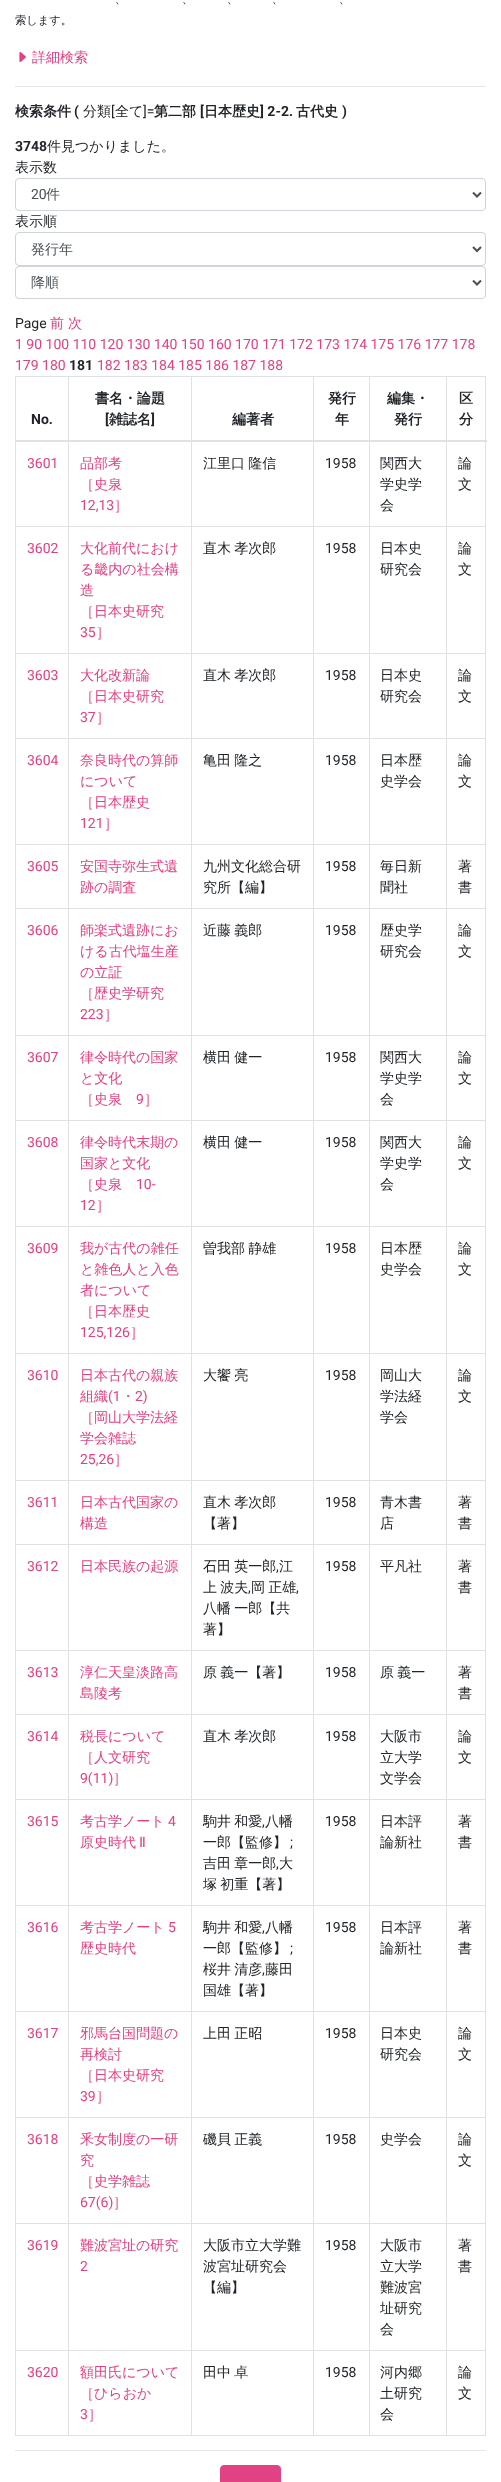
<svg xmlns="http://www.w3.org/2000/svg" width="501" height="2482">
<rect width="100%" height="100%" fill="#fff"/>
<text x="115" y="3" style="font-family:WenQuanYi Zen Hei;font-size:11.25px;font-weight:500;fill:#212529">、</text>
<text x="182" y="3" style="font-family:WenQuanYi Zen Hei;font-size:11.25px;font-weight:500;fill:#212529">、</text>
<text x="227" y="3" style="font-family:WenQuanYi Zen Hei;font-size:11.25px;font-weight:500;fill:#212529">、</text>
<text x="272" y="3" style="font-family:WenQuanYi Zen Hei;font-size:11.25px;font-weight:500;fill:#212529">、</text>
<text x="339" y="3" style="font-family:WenQuanYi Zen Hei;font-size:11.25px;font-weight:500;fill:#212529">、</text>
<text x="15" y="24" style="font-family:WenQuanYi Zen Hei;font-size:11.25px;font-weight:500;fill:#212529">索します。</text>
<image x="19" y="52" width="7" height="10" href="media/1.png"/>
<text x="32" y="62" style="font-family:WenQuanYi Zen Hei;font-size:14px;font-weight:500;fill:#e04283">詳細検索</text>
<rect x="15" y="86" width="471" height="1" fill="#e6e6e6"/>
<text x="15" y="116" style="font-family:WenQuanYi Zen Hei;font-size:14px;font-weight:bold;fill:#212529">検索条件</text>
<text x="74" y="116" style="font-family:Roboto;font-size:14px;font-weight:bold;fill:#212529">(</text>
<text x="83" y="116" style="font-family:WenQuanYi Zen Hei;font-size:14px;font-weight:500;fill:#212529">分類</text>
<text x="111" y="116" style="font-family:Roboto;font-size:14px;fill:#212529">[</text>
<text x="115" y="116" style="font-family:WenQuanYi Zen Hei;font-size:14px;font-weight:500;fill:#212529">全て</text>
<text x="143" y="116" style="font-family:Roboto;font-size:14px;fill:#212529">]=</text>
<text x="154" y="116" style="font-family:WenQuanYi Zen Hei;font-size:14px;font-weight:bold;fill:#212529">第二部</text>
<text x="200" y="116" style="font-family:Roboto;font-size:14px;font-weight:bold;fill:#212529">[</text>
<text x="204" y="116" style="font-family:WenQuanYi Zen Hei;font-size:14px;font-weight:bold;fill:#212529">日本歴史</text>
<text x="260" y="116" style="font-family:Roboto;font-size:14px;font-weight:bold;fill:#212529">] 2-2.</text>
<text x="296" y="116" style="font-family:WenQuanYi Zen Hei;font-size:14px;font-weight:bold;fill:#212529">古代史</text>
<text x="342" y="116" style="font-family:Roboto;font-size:14px;font-weight:bold;fill:#212529">)</text>
<text x="15" y="151" style="font-family:Roboto;font-size:14px;font-weight:bold;fill:#212529">3748</text>
<text x="47" y="151" style="font-family:WenQuanYi Zen Hei;font-size:14px;font-weight:500;fill:#212529">件見つかりました。</text>
<text x="15" y="172" style="font-family:WenQuanYi Zen Hei;font-size:14px;font-weight:500;fill:#212529">表示数</text>
<rect x="15.5" y="178.5" width="470" height="32" rx="3.5" fill="none" stroke="#ced4da"/>
<path d="M473 192.5l4 4l4-4" fill="none" stroke="#495057" stroke-width="2"/>
<text x="31" y="199" style="font-family:Roboto;font-size:14px;fill:#495057">20</text>
<text x="46" y="199" style="font-family:WenQuanYi Zen Hei;font-size:14px;font-weight:500;fill:#495057">件</text>
<text x="15" y="226" style="font-family:WenQuanYi Zen Hei;font-size:14px;font-weight:500;fill:#212529">表示順</text>
<rect x="15.5" y="232.5" width="470" height="33" rx="3.5" fill="none" stroke="#ced4da"/>
<path d="M473 247l4 4l4-4" fill="none" stroke="#495057" stroke-width="2"/>
<text x="31" y="254" style="font-family:WenQuanYi Zen Hei;font-size:14px;font-weight:500;fill:#495057">発行年</text>
<rect x="15.5" y="266.5" width="470" height="32" rx="3.5" fill="none" stroke="#ced4da"/>
<path d="M473 280.5l4 4l4-4" fill="none" stroke="#495057" stroke-width="2"/>
<text x="31" y="287" style="font-family:WenQuanYi Zen Hei;font-size:14px;font-weight:500;fill:#495057">降順</text>
<text x="15" y="328" style="font-family:Roboto;font-size:14px;fill:#212529">Page</text>
<text x="50" y="328" style="font-family:WenQuanYi Zen Hei;font-size:14px;font-weight:500;fill:#e04283">前</text>
<text x="68" y="328" style="font-family:WenQuanYi Zen Hei;font-size:14px;font-weight:500;fill:#e04283">次</text>
<text x="15" y="349" style="font-family:Roboto;font-size:14px;fill:#e04283">1 90 100 110 120 130 140 150 160 170 171 172 173 174 175 176 177 178</text>
<text x="15" y="370" style="font-family:Roboto;font-size:14px;fill:#e04283">179 180</text>
<text x="69" y="370" style="font-family:Roboto;font-size:14px;font-weight:bold;fill:#212529">181</text>
<text x="97" y="370" style="font-family:Roboto;font-size:14px;fill:#e04283">182 183 184 185 186 187 188</text>
<rect x="15" y="376" width="471" height="1" fill="#dee2e6"/>
<rect x="485" y="376" width="1" height="2060" fill="#dee2e6"/>
<rect x="15" y="2435" width="471" height="1" fill="#dee2e6"/>
<rect x="15" y="376" width="1" height="2060" fill="#dee2e6"/>
<text x="31" y="424" style="font-family:Roboto;font-size:14px;font-weight:bold;fill:#212529">No.</text>
<text x="95" y="403" style="font-family:WenQuanYi Zen Hei;font-size:14px;font-weight:bold;fill:#212529">書名・論題</text>
<text x="105" y="424" style="font-family:Roboto;font-size:14px;font-weight:bold;fill:#212529">[</text>
<text x="109" y="424" style="font-family:WenQuanYi Zen Hei;font-size:14px;font-weight:bold;fill:#212529">雑誌名</text>
<text x="151" y="424" style="font-family:Roboto;font-size:14px;font-weight:bold;fill:#212529">]</text>
<text x="232" y="424" style="font-family:WenQuanYi Zen Hei;font-size:14px;font-weight:bold;fill:#212529">編著者</text>
<text x="328" y="403" style="font-family:WenQuanYi Zen Hei;font-size:14px;font-weight:bold;fill:#212529">発行</text>
<text x="335" y="424" style="font-family:WenQuanYi Zen Hei;font-size:14px;font-weight:bold;fill:#212529">年</text>
<text x="387" y="403" style="font-family:WenQuanYi Zen Hei;font-size:14px;font-weight:bold;fill:#212529">編集・</text>
<text x="394" y="424" style="font-family:WenQuanYi Zen Hei;font-size:14px;font-weight:bold;fill:#212529">発行</text>
<rect x="446" y="526" width="40" height="1" fill="#dee2e6"/>
<rect x="446" y="653" width="40" height="1" fill="#dee2e6"/>
<rect x="446" y="738" width="40" height="1" fill="#dee2e6"/>
<rect x="446" y="844" width="40" height="1" fill="#dee2e6"/>
<rect x="446" y="908" width="40" height="1" fill="#dee2e6"/>
<rect x="446" y="1035" width="40" height="1" fill="#dee2e6"/>
<rect x="446" y="1120" width="40" height="1" fill="#dee2e6"/>
<rect x="446" y="1226" width="40" height="1" fill="#dee2e6"/>
<rect x="446" y="1353" width="40" height="1" fill="#dee2e6"/>
<rect x="446" y="1480" width="40" height="1" fill="#dee2e6"/>
<rect x="446" y="1544" width="40" height="1" fill="#dee2e6"/>
<rect x="446" y="1650" width="40" height="1" fill="#dee2e6"/>
<rect x="446" y="1714" width="40" height="1" fill="#dee2e6"/>
<rect x="446" y="1799" width="40" height="1" fill="#dee2e6"/>
<rect x="446" y="1905" width="40" height="1" fill="#dee2e6"/>
<rect x="446" y="2011" width="40" height="1" fill="#dee2e6"/>
<rect x="446" y="2117" width="40" height="1" fill="#dee2e6"/>
<rect x="446" y="2223" width="40" height="1" fill="#dee2e6"/>
<rect x="446" y="2350" width="40" height="1" fill="#dee2e6"/>
<rect x="446" y="2350" width="1" height="86" fill="#dee2e6"/>
<rect x="369" y="2350" width="78" height="1" fill="#dee2e6"/>
<rect x="446" y="2223" width="1" height="128" fill="#dee2e6"/>
<rect x="369" y="2223" width="78" height="1" fill="#dee2e6"/>
<rect x="446" y="2117" width="1" height="107" fill="#dee2e6"/>
<rect x="369" y="2117" width="78" height="1" fill="#dee2e6"/>
<rect x="446" y="2011" width="1" height="107" fill="#dee2e6"/>
<rect x="369" y="2011" width="78" height="1" fill="#dee2e6"/>
<rect x="446" y="1905" width="1" height="107" fill="#dee2e6"/>
<rect x="369" y="1905" width="78" height="1" fill="#dee2e6"/>
<rect x="446" y="1799" width="1" height="107" fill="#dee2e6"/>
<rect x="369" y="1799" width="78" height="1" fill="#dee2e6"/>
<rect x="446" y="1714" width="1" height="86" fill="#dee2e6"/>
<rect x="369" y="1714" width="78" height="1" fill="#dee2e6"/>
<rect x="446" y="1650" width="1" height="65" fill="#dee2e6"/>
<rect x="369" y="1650" width="78" height="1" fill="#dee2e6"/>
<rect x="446" y="1544" width="1" height="107" fill="#dee2e6"/>
<rect x="369" y="1544" width="78" height="1" fill="#dee2e6"/>
<rect x="446" y="1480" width="1" height="65" fill="#dee2e6"/>
<rect x="369" y="1480" width="78" height="1" fill="#dee2e6"/>
<rect x="446" y="1353" width="1" height="128" fill="#dee2e6"/>
<rect x="369" y="1353" width="78" height="1" fill="#dee2e6"/>
<rect x="446" y="1226" width="1" height="128" fill="#dee2e6"/>
<rect x="369" y="1226" width="78" height="1" fill="#dee2e6"/>
<rect x="446" y="1120" width="1" height="107" fill="#dee2e6"/>
<rect x="369" y="1120" width="78" height="1" fill="#dee2e6"/>
<rect x="446" y="1035" width="1" height="86" fill="#dee2e6"/>
<rect x="369" y="1035" width="78" height="1" fill="#dee2e6"/>
<rect x="446" y="908" width="1" height="128" fill="#dee2e6"/>
<rect x="369" y="908" width="78" height="1" fill="#dee2e6"/>
<rect x="446" y="844" width="1" height="65" fill="#dee2e6"/>
<rect x="369" y="844" width="78" height="1" fill="#dee2e6"/>
<rect x="446" y="738" width="1" height="107" fill="#dee2e6"/>
<rect x="369" y="738" width="78" height="1" fill="#dee2e6"/>
<rect x="446" y="653" width="1" height="86" fill="#dee2e6"/>
<rect x="369" y="653" width="78" height="1" fill="#dee2e6"/>
<rect x="446" y="526" width="1" height="128" fill="#dee2e6"/>
<rect x="369" y="526" width="78" height="1" fill="#dee2e6"/>
<rect x="369" y="2350" width="1" height="86" fill="#dee2e6"/>
<rect x="313" y="2350" width="57" height="1" fill="#dee2e6"/>
<rect x="369" y="2223" width="1" height="128" fill="#dee2e6"/>
<rect x="313" y="2223" width="57" height="1" fill="#dee2e6"/>
<rect x="369" y="2117" width="1" height="107" fill="#dee2e6"/>
<rect x="313" y="2117" width="57" height="1" fill="#dee2e6"/>
<rect x="369" y="2011" width="1" height="107" fill="#dee2e6"/>
<rect x="313" y="2011" width="57" height="1" fill="#dee2e6"/>
<rect x="369" y="1905" width="1" height="107" fill="#dee2e6"/>
<rect x="313" y="1905" width="57" height="1" fill="#dee2e6"/>
<rect x="369" y="1799" width="1" height="107" fill="#dee2e6"/>
<rect x="313" y="1799" width="57" height="1" fill="#dee2e6"/>
<rect x="369" y="1714" width="1" height="86" fill="#dee2e6"/>
<rect x="313" y="1714" width="57" height="1" fill="#dee2e6"/>
<rect x="369" y="1650" width="1" height="65" fill="#dee2e6"/>
<rect x="313" y="1650" width="57" height="1" fill="#dee2e6"/>
<rect x="369" y="1544" width="1" height="107" fill="#dee2e6"/>
<rect x="313" y="1544" width="57" height="1" fill="#dee2e6"/>
<rect x="369" y="1480" width="1" height="65" fill="#dee2e6"/>
<rect x="313" y="1480" width="57" height="1" fill="#dee2e6"/>
<rect x="369" y="1353" width="1" height="128" fill="#dee2e6"/>
<rect x="313" y="1353" width="57" height="1" fill="#dee2e6"/>
<rect x="369" y="1226" width="1" height="128" fill="#dee2e6"/>
<rect x="313" y="1226" width="57" height="1" fill="#dee2e6"/>
<rect x="369" y="1120" width="1" height="107" fill="#dee2e6"/>
<rect x="313" y="1120" width="57" height="1" fill="#dee2e6"/>
<rect x="369" y="1035" width="1" height="86" fill="#dee2e6"/>
<rect x="313" y="1035" width="57" height="1" fill="#dee2e6"/>
<rect x="369" y="908" width="1" height="128" fill="#dee2e6"/>
<rect x="313" y="908" width="57" height="1" fill="#dee2e6"/>
<rect x="369" y="844" width="1" height="65" fill="#dee2e6"/>
<rect x="313" y="844" width="57" height="1" fill="#dee2e6"/>
<rect x="369" y="738" width="1" height="107" fill="#dee2e6"/>
<rect x="313" y="738" width="57" height="1" fill="#dee2e6"/>
<rect x="369" y="653" width="1" height="86" fill="#dee2e6"/>
<rect x="313" y="653" width="57" height="1" fill="#dee2e6"/>
<rect x="369" y="526" width="1" height="128" fill="#dee2e6"/>
<rect x="313" y="526" width="57" height="1" fill="#dee2e6"/>
<rect x="313" y="2350" width="1" height="86" fill="#dee2e6"/>
<rect x="191" y="2350" width="123" height="1" fill="#dee2e6"/>
<rect x="313" y="2223" width="1" height="128" fill="#dee2e6"/>
<rect x="191" y="2223" width="123" height="1" fill="#dee2e6"/>
<rect x="313" y="2117" width="1" height="107" fill="#dee2e6"/>
<rect x="191" y="2117" width="123" height="1" fill="#dee2e6"/>
<rect x="313" y="2011" width="1" height="107" fill="#dee2e6"/>
<rect x="191" y="2011" width="123" height="1" fill="#dee2e6"/>
<rect x="313" y="1905" width="1" height="107" fill="#dee2e6"/>
<rect x="191" y="1905" width="123" height="1" fill="#dee2e6"/>
<rect x="313" y="1799" width="1" height="107" fill="#dee2e6"/>
<rect x="191" y="1799" width="123" height="1" fill="#dee2e6"/>
<rect x="313" y="1714" width="1" height="86" fill="#dee2e6"/>
<rect x="191" y="1714" width="123" height="1" fill="#dee2e6"/>
<rect x="313" y="1650" width="1" height="65" fill="#dee2e6"/>
<rect x="191" y="1650" width="123" height="1" fill="#dee2e6"/>
<rect x="313" y="1544" width="1" height="107" fill="#dee2e6"/>
<rect x="191" y="1544" width="123" height="1" fill="#dee2e6"/>
<rect x="313" y="1480" width="1" height="65" fill="#dee2e6"/>
<rect x="191" y="1480" width="123" height="1" fill="#dee2e6"/>
<rect x="313" y="1353" width="1" height="128" fill="#dee2e6"/>
<rect x="191" y="1353" width="123" height="1" fill="#dee2e6"/>
<rect x="313" y="1226" width="1" height="128" fill="#dee2e6"/>
<rect x="191" y="1226" width="123" height="1" fill="#dee2e6"/>
<rect x="313" y="1120" width="1" height="107" fill="#dee2e6"/>
<rect x="191" y="1120" width="123" height="1" fill="#dee2e6"/>
<rect x="313" y="1035" width="1" height="86" fill="#dee2e6"/>
<rect x="191" y="1035" width="123" height="1" fill="#dee2e6"/>
<rect x="313" y="908" width="1" height="128" fill="#dee2e6"/>
<rect x="191" y="908" width="123" height="1" fill="#dee2e6"/>
<rect x="313" y="844" width="1" height="65" fill="#dee2e6"/>
<rect x="191" y="844" width="123" height="1" fill="#dee2e6"/>
<rect x="313" y="738" width="1" height="107" fill="#dee2e6"/>
<rect x="191" y="738" width="123" height="1" fill="#dee2e6"/>
<rect x="313" y="653" width="1" height="86" fill="#dee2e6"/>
<rect x="191" y="653" width="123" height="1" fill="#dee2e6"/>
<rect x="313" y="526" width="1" height="128" fill="#dee2e6"/>
<rect x="191" y="526" width="123" height="1" fill="#dee2e6"/>
<rect x="191" y="2350" width="1" height="86" fill="#dee2e6"/>
<rect x="68" y="2350" width="124" height="1" fill="#dee2e6"/>
<rect x="191" y="2223" width="1" height="128" fill="#dee2e6"/>
<rect x="68" y="2223" width="124" height="1" fill="#dee2e6"/>
<rect x="191" y="2117" width="1" height="107" fill="#dee2e6"/>
<rect x="68" y="2117" width="124" height="1" fill="#dee2e6"/>
<rect x="191" y="2011" width="1" height="107" fill="#dee2e6"/>
<rect x="68" y="2011" width="124" height="1" fill="#dee2e6"/>
<rect x="191" y="1905" width="1" height="107" fill="#dee2e6"/>
<rect x="68" y="1905" width="124" height="1" fill="#dee2e6"/>
<rect x="191" y="1799" width="1" height="107" fill="#dee2e6"/>
<rect x="68" y="1799" width="124" height="1" fill="#dee2e6"/>
<rect x="191" y="1714" width="1" height="86" fill="#dee2e6"/>
<rect x="68" y="1714" width="124" height="1" fill="#dee2e6"/>
<rect x="191" y="1650" width="1" height="65" fill="#dee2e6"/>
<rect x="68" y="1650" width="124" height="1" fill="#dee2e6"/>
<rect x="191" y="1544" width="1" height="107" fill="#dee2e6"/>
<rect x="68" y="1544" width="124" height="1" fill="#dee2e6"/>
<rect x="191" y="1480" width="1" height="65" fill="#dee2e6"/>
<rect x="68" y="1480" width="124" height="1" fill="#dee2e6"/>
<rect x="191" y="1353" width="1" height="128" fill="#dee2e6"/>
<rect x="68" y="1353" width="124" height="1" fill="#dee2e6"/>
<rect x="191" y="1226" width="1" height="128" fill="#dee2e6"/>
<rect x="68" y="1226" width="124" height="1" fill="#dee2e6"/>
<rect x="191" y="1120" width="1" height="107" fill="#dee2e6"/>
<rect x="68" y="1120" width="124" height="1" fill="#dee2e6"/>
<rect x="191" y="1035" width="1" height="86" fill="#dee2e6"/>
<rect x="68" y="1035" width="124" height="1" fill="#dee2e6"/>
<rect x="191" y="908" width="1" height="128" fill="#dee2e6"/>
<rect x="68" y="908" width="124" height="1" fill="#dee2e6"/>
<rect x="191" y="844" width="1" height="65" fill="#dee2e6"/>
<rect x="68" y="844" width="124" height="1" fill="#dee2e6"/>
<rect x="191" y="738" width="1" height="107" fill="#dee2e6"/>
<rect x="68" y="738" width="124" height="1" fill="#dee2e6"/>
<rect x="191" y="653" width="1" height="86" fill="#dee2e6"/>
<rect x="68" y="653" width="124" height="1" fill="#dee2e6"/>
<rect x="191" y="526" width="1" height="128" fill="#dee2e6"/>
<rect x="68" y="526" width="124" height="1" fill="#dee2e6"/>
<rect x="68" y="2350" width="1" height="86" fill="#dee2e6"/>
<rect x="15" y="2350" width="54" height="1" fill="#dee2e6"/>
<rect x="68" y="2223" width="1" height="128" fill="#dee2e6"/>
<rect x="15" y="2223" width="54" height="1" fill="#dee2e6"/>
<rect x="68" y="2117" width="1" height="107" fill="#dee2e6"/>
<rect x="15" y="2117" width="54" height="1" fill="#dee2e6"/>
<rect x="68" y="2011" width="1" height="107" fill="#dee2e6"/>
<rect x="15" y="2011" width="54" height="1" fill="#dee2e6"/>
<rect x="68" y="1905" width="1" height="107" fill="#dee2e6"/>
<rect x="15" y="1905" width="54" height="1" fill="#dee2e6"/>
<rect x="68" y="1799" width="1" height="107" fill="#dee2e6"/>
<rect x="15" y="1799" width="54" height="1" fill="#dee2e6"/>
<rect x="68" y="1714" width="1" height="86" fill="#dee2e6"/>
<rect x="15" y="1714" width="54" height="1" fill="#dee2e6"/>
<rect x="68" y="1650" width="1" height="65" fill="#dee2e6"/>
<rect x="15" y="1650" width="54" height="1" fill="#dee2e6"/>
<rect x="68" y="1544" width="1" height="107" fill="#dee2e6"/>
<rect x="15" y="1544" width="54" height="1" fill="#dee2e6"/>
<rect x="68" y="1480" width="1" height="65" fill="#dee2e6"/>
<rect x="15" y="1480" width="54" height="1" fill="#dee2e6"/>
<rect x="68" y="1353" width="1" height="128" fill="#dee2e6"/>
<rect x="15" y="1353" width="54" height="1" fill="#dee2e6"/>
<rect x="68" y="1226" width="1" height="128" fill="#dee2e6"/>
<rect x="15" y="1226" width="54" height="1" fill="#dee2e6"/>
<rect x="68" y="1120" width="1" height="107" fill="#dee2e6"/>
<rect x="15" y="1120" width="54" height="1" fill="#dee2e6"/>
<rect x="68" y="1035" width="1" height="86" fill="#dee2e6"/>
<rect x="15" y="1035" width="54" height="1" fill="#dee2e6"/>
<rect x="68" y="908" width="1" height="128" fill="#dee2e6"/>
<rect x="15" y="908" width="54" height="1" fill="#dee2e6"/>
<rect x="68" y="844" width="1" height="65" fill="#dee2e6"/>
<rect x="15" y="844" width="54" height="1" fill="#dee2e6"/>
<rect x="68" y="738" width="1" height="107" fill="#dee2e6"/>
<rect x="15" y="738" width="54" height="1" fill="#dee2e6"/>
<rect x="68" y="653" width="1" height="86" fill="#dee2e6"/>
<rect x="15" y="653" width="54" height="1" fill="#dee2e6"/>
<rect x="68" y="526" width="1" height="128" fill="#dee2e6"/>
<rect x="15" y="526" width="54" height="1" fill="#dee2e6"/>
<rect x="68" y="376" width="1" height="151" fill="#dee2e6"/>
<rect x="191" y="376" width="1" height="151" fill="#dee2e6"/>
<rect x="313" y="376" width="1" height="151" fill="#dee2e6"/>
<rect x="369" y="376" width="1" height="151" fill="#dee2e6"/>
<rect x="446" y="376" width="1" height="151" fill="#dee2e6"/>
<rect x="15" y="440" width="472" height="2" fill="#dee2e6"/>
<text x="459" y="403" style="font-family:WenQuanYi Zen Hei;font-size:14px;font-weight:bold;fill:#212529">区</text>
<text x="459" y="424" style="font-family:WenQuanYi Zen Hei;font-size:14px;font-weight:bold;fill:#212529">分</text>
<text x="27" y="468" style="font-family:Roboto;font-size:14px;fill:#e04283">3601</text>
<text x="80" y="468" style="font-family:WenQuanYi Zen Hei;font-size:14px;font-weight:500;fill:#e04283">品部考</text>
<text x="80" y="489" style="font-family:WenQuanYi Zen Hei;font-size:14px;font-weight:500;fill:#e04283">［史泉</text>
<text x="80" y="510" style="font-family:Roboto;font-size:14px;fill:#e04283">12,13</text>
<text x="114" y="510" style="font-family:WenQuanYi Zen Hei;font-size:14px;font-weight:500;fill:#e04283">］</text>
<text x="203" y="468" word-spacing="-1" style="font-family:WenQuanYi Zen Hei;font-size:14px;font-weight:500;fill:#212529">江里口 隆信</text>
<text x="325" y="468" style="font-family:Roboto;font-size:14px;fill:#212529">1958</text>
<text x="380" y="468" style="font-family:WenQuanYi Zen Hei;font-size:14px;font-weight:500;fill:#212529">関西大</text>
<text x="380" y="489" style="font-family:WenQuanYi Zen Hei;font-size:14px;font-weight:500;fill:#212529">学史学</text>
<text x="380" y="510" style="font-family:WenQuanYi Zen Hei;font-size:14px;font-weight:500;fill:#212529">会</text>
<text x="458" y="468" style="font-family:WenQuanYi Zen Hei;font-size:14px;font-weight:500;fill:#212529">論</text>
<text x="458" y="489" style="font-family:WenQuanYi Zen Hei;font-size:14px;font-weight:500;fill:#212529">文</text>
<text x="27" y="553" style="font-family:Roboto;font-size:14px;fill:#e04283">3602</text>
<text x="80" y="553" style="font-family:WenQuanYi Zen Hei;font-size:14px;font-weight:500;fill:#e04283">大化前代におけ</text>
<text x="80" y="574" style="font-family:WenQuanYi Zen Hei;font-size:14px;font-weight:500;fill:#e04283">る畿内の社会構</text>
<text x="80" y="595" style="font-family:WenQuanYi Zen Hei;font-size:14px;font-weight:500;fill:#e04283">造</text>
<text x="80" y="616" style="font-family:WenQuanYi Zen Hei;font-size:14px;font-weight:500;fill:#e04283">［日本史研究</text>
<text x="80" y="637" style="font-family:Roboto;font-size:14px;fill:#e04283">35</text>
<text x="96" y="637" style="font-family:WenQuanYi Zen Hei;font-size:14px;font-weight:500;fill:#e04283">］</text>
<text x="203" y="553" word-spacing="-1" style="font-family:WenQuanYi Zen Hei;font-size:14px;font-weight:500;fill:#212529">直木 孝次郎</text>
<text x="325" y="553" style="font-family:Roboto;font-size:14px;fill:#212529">1958</text>
<text x="380" y="553" style="font-family:WenQuanYi Zen Hei;font-size:14px;font-weight:500;fill:#212529">日本史</text>
<text x="380" y="574" style="font-family:WenQuanYi Zen Hei;font-size:14px;font-weight:500;fill:#212529">研究会</text>
<text x="458" y="553" style="font-family:WenQuanYi Zen Hei;font-size:14px;font-weight:500;fill:#212529">論</text>
<text x="458" y="574" style="font-family:WenQuanYi Zen Hei;font-size:14px;font-weight:500;fill:#212529">文</text>
<text x="27" y="680" style="font-family:Roboto;font-size:14px;fill:#e04283">3603</text>
<text x="80" y="680" style="font-family:WenQuanYi Zen Hei;font-size:14px;font-weight:500;fill:#e04283">大化改新論</text>
<text x="80" y="701" style="font-family:WenQuanYi Zen Hei;font-size:14px;font-weight:500;fill:#e04283">［日本史研究</text>
<text x="80" y="722" style="font-family:Roboto;font-size:14px;fill:#e04283">37</text>
<text x="96" y="722" style="font-family:WenQuanYi Zen Hei;font-size:14px;font-weight:500;fill:#e04283">］</text>
<text x="203" y="680" word-spacing="-1" style="font-family:WenQuanYi Zen Hei;font-size:14px;font-weight:500;fill:#212529">直木 孝次郎</text>
<text x="325" y="680" style="font-family:Roboto;font-size:14px;fill:#212529">1958</text>
<text x="380" y="680" style="font-family:WenQuanYi Zen Hei;font-size:14px;font-weight:500;fill:#212529">日本史</text>
<text x="380" y="701" style="font-family:WenQuanYi Zen Hei;font-size:14px;font-weight:500;fill:#212529">研究会</text>
<text x="458" y="680" style="font-family:WenQuanYi Zen Hei;font-size:14px;font-weight:500;fill:#212529">論</text>
<text x="458" y="701" style="font-family:WenQuanYi Zen Hei;font-size:14px;font-weight:500;fill:#212529">文</text>
<text x="27" y="765" style="font-family:Roboto;font-size:14px;fill:#e04283">3604</text>
<text x="80" y="765" style="font-family:WenQuanYi Zen Hei;font-size:14px;font-weight:500;fill:#e04283">奈良時代の算師</text>
<text x="80" y="786" style="font-family:WenQuanYi Zen Hei;font-size:14px;font-weight:500;fill:#e04283">について</text>
<text x="80" y="807" style="font-family:WenQuanYi Zen Hei;font-size:14px;font-weight:500;fill:#e04283">［日本歴史</text>
<text x="80" y="828" style="font-family:Roboto;font-size:14px;fill:#e04283">121</text>
<text x="104" y="828" style="font-family:WenQuanYi Zen Hei;font-size:14px;font-weight:500;fill:#e04283">］</text>
<text x="203" y="765" word-spacing="-1" style="font-family:WenQuanYi Zen Hei;font-size:14px;font-weight:500;fill:#212529">亀田 隆之</text>
<text x="325" y="765" style="font-family:Roboto;font-size:14px;fill:#212529">1958</text>
<text x="380" y="765" style="font-family:WenQuanYi Zen Hei;font-size:14px;font-weight:500;fill:#212529">日本歴</text>
<text x="380" y="786" style="font-family:WenQuanYi Zen Hei;font-size:14px;font-weight:500;fill:#212529">史学会</text>
<text x="458" y="765" style="font-family:WenQuanYi Zen Hei;font-size:14px;font-weight:500;fill:#212529">論</text>
<text x="458" y="786" style="font-family:WenQuanYi Zen Hei;font-size:14px;font-weight:500;fill:#212529">文</text>
<text x="27" y="871" style="font-family:Roboto;font-size:14px;fill:#e04283">3605</text>
<text x="80" y="871" style="font-family:WenQuanYi Zen Hei;font-size:14px;font-weight:500;fill:#e04283">安国寺弥生式遺</text>
<text x="80" y="892" style="font-family:WenQuanYi Zen Hei;font-size:14px;font-weight:500;fill:#e04283">跡の調査</text>
<text x="203" y="871" style="font-family:WenQuanYi Zen Hei;font-size:14px;font-weight:500;fill:#212529">九州文化総合研</text>
<text x="203" y="892" style="font-family:WenQuanYi Zen Hei;font-size:14px;font-weight:500;fill:#212529">究所【編】</text>
<text x="325" y="871" style="font-family:Roboto;font-size:14px;fill:#212529">1958</text>
<text x="380" y="871" style="font-family:WenQuanYi Zen Hei;font-size:14px;font-weight:500;fill:#212529">毎日新</text>
<text x="380" y="892" style="font-family:WenQuanYi Zen Hei;font-size:14px;font-weight:500;fill:#212529">聞社</text>
<text x="458" y="871" style="font-family:WenQuanYi Zen Hei;font-size:14px;font-weight:500;fill:#212529">著</text>
<text x="458" y="892" style="font-family:WenQuanYi Zen Hei;font-size:14px;font-weight:500;fill:#212529">書</text>
<text x="27" y="935" style="font-family:Roboto;font-size:14px;fill:#e04283">3606</text>
<text x="80" y="935" style="font-family:WenQuanYi Zen Hei;font-size:14px;font-weight:500;fill:#e04283">師楽式遺跡にお</text>
<text x="80" y="956" style="font-family:WenQuanYi Zen Hei;font-size:14px;font-weight:500;fill:#e04283">ける古代塩生産</text>
<text x="80" y="977" style="font-family:WenQuanYi Zen Hei;font-size:14px;font-weight:500;fill:#e04283">の立証</text>
<text x="80" y="998" style="font-family:WenQuanYi Zen Hei;font-size:14px;font-weight:500;fill:#e04283">［歴史学研究</text>
<text x="80" y="1019" style="font-family:Roboto;font-size:14px;fill:#e04283">223</text>
<text x="104" y="1019" style="font-family:WenQuanYi Zen Hei;font-size:14px;font-weight:500;fill:#e04283">］</text>
<text x="203" y="935" word-spacing="-1" style="font-family:WenQuanYi Zen Hei;font-size:14px;font-weight:500;fill:#212529">近藤 義郎</text>
<text x="325" y="935" style="font-family:Roboto;font-size:14px;fill:#212529">1958</text>
<text x="380" y="935" style="font-family:WenQuanYi Zen Hei;font-size:14px;font-weight:500;fill:#212529">歴史学</text>
<text x="380" y="956" style="font-family:WenQuanYi Zen Hei;font-size:14px;font-weight:500;fill:#212529">研究会</text>
<text x="458" y="935" style="font-family:WenQuanYi Zen Hei;font-size:14px;font-weight:500;fill:#212529">論</text>
<text x="458" y="956" style="font-family:WenQuanYi Zen Hei;font-size:14px;font-weight:500;fill:#212529">文</text>
<text x="27" y="1062" style="font-family:Roboto;font-size:14px;fill:#e04283">3607</text>
<text x="80" y="1062" style="font-family:WenQuanYi Zen Hei;font-size:14px;font-weight:500;fill:#e04283">律令時代の国家</text>
<text x="80" y="1083" style="font-family:WenQuanYi Zen Hei;font-size:14px;font-weight:500;fill:#e04283">と文化</text>
<text x="80" y="1104" style="font-family:WenQuanYi Zen Hei;font-size:14px;font-weight:500;fill:#e04283">［史泉</text>
<text x="136" y="1104" style="font-family:Roboto;font-size:14px;fill:#e04283">9</text>
<text x="144" y="1104" style="font-family:WenQuanYi Zen Hei;font-size:14px;font-weight:500;fill:#e04283">］</text>
<text x="203" y="1062" word-spacing="-1" style="font-family:WenQuanYi Zen Hei;font-size:14px;font-weight:500;fill:#212529">横田 健一</text>
<text x="325" y="1062" style="font-family:Roboto;font-size:14px;fill:#212529">1958</text>
<text x="380" y="1062" style="font-family:WenQuanYi Zen Hei;font-size:14px;font-weight:500;fill:#212529">関西大</text>
<text x="380" y="1083" style="font-family:WenQuanYi Zen Hei;font-size:14px;font-weight:500;fill:#212529">学史学</text>
<text x="380" y="1104" style="font-family:WenQuanYi Zen Hei;font-size:14px;font-weight:500;fill:#212529">会</text>
<text x="458" y="1062" style="font-family:WenQuanYi Zen Hei;font-size:14px;font-weight:500;fill:#212529">論</text>
<text x="458" y="1083" style="font-family:WenQuanYi Zen Hei;font-size:14px;font-weight:500;fill:#212529">文</text>
<text x="27" y="1147" style="font-family:Roboto;font-size:14px;fill:#e04283">3608</text>
<text x="80" y="1147" style="font-family:WenQuanYi Zen Hei;font-size:14px;font-weight:500;fill:#e04283">律令時代末期の</text>
<text x="80" y="1168" style="font-family:WenQuanYi Zen Hei;font-size:14px;font-weight:500;fill:#e04283">国家と文化</text>
<text x="80" y="1189" style="font-family:WenQuanYi Zen Hei;font-size:14px;font-weight:500;fill:#e04283">［史泉</text>
<text x="136" y="1189" style="font-family:Roboto;font-size:14px;fill:#e04283">10-</text>
<text x="80" y="1210" style="font-family:Roboto;font-size:14px;fill:#e04283">12</text>
<text x="96" y="1210" style="font-family:WenQuanYi Zen Hei;font-size:14px;font-weight:500;fill:#e04283">］</text>
<text x="203" y="1147" word-spacing="-1" style="font-family:WenQuanYi Zen Hei;font-size:14px;font-weight:500;fill:#212529">横田 健一</text>
<text x="325" y="1147" style="font-family:Roboto;font-size:14px;fill:#212529">1958</text>
<text x="380" y="1147" style="font-family:WenQuanYi Zen Hei;font-size:14px;font-weight:500;fill:#212529">関西大</text>
<text x="380" y="1168" style="font-family:WenQuanYi Zen Hei;font-size:14px;font-weight:500;fill:#212529">学史学</text>
<text x="380" y="1189" style="font-family:WenQuanYi Zen Hei;font-size:14px;font-weight:500;fill:#212529">会</text>
<text x="458" y="1147" style="font-family:WenQuanYi Zen Hei;font-size:14px;font-weight:500;fill:#212529">論</text>
<text x="458" y="1168" style="font-family:WenQuanYi Zen Hei;font-size:14px;font-weight:500;fill:#212529">文</text>
<text x="27" y="1253" style="font-family:Roboto;font-size:14px;fill:#e04283">3609</text>
<text x="80" y="1253" style="font-family:WenQuanYi Zen Hei;font-size:14px;font-weight:500;fill:#e04283">我が古代の雑任</text>
<text x="80" y="1274" style="font-family:WenQuanYi Zen Hei;font-size:14px;font-weight:500;fill:#e04283">と雑色人と入色</text>
<text x="80" y="1295" style="font-family:WenQuanYi Zen Hei;font-size:14px;font-weight:500;fill:#e04283">者について</text>
<text x="80" y="1316" style="font-family:WenQuanYi Zen Hei;font-size:14px;font-weight:500;fill:#e04283">［日本歴史</text>
<text x="80" y="1337" style="font-family:Roboto;font-size:14px;fill:#e04283">125,126</text>
<text x="130" y="1337" style="font-family:WenQuanYi Zen Hei;font-size:14px;font-weight:500;fill:#e04283">］</text>
<text x="203" y="1253" word-spacing="-1" style="font-family:WenQuanYi Zen Hei;font-size:14px;font-weight:500;fill:#212529">曽我部 静雄</text>
<text x="325" y="1253" style="font-family:Roboto;font-size:14px;fill:#212529">1958</text>
<text x="380" y="1253" style="font-family:WenQuanYi Zen Hei;font-size:14px;font-weight:500;fill:#212529">日本歴</text>
<text x="380" y="1274" style="font-family:WenQuanYi Zen Hei;font-size:14px;font-weight:500;fill:#212529">史学会</text>
<text x="458" y="1253" style="font-family:WenQuanYi Zen Hei;font-size:14px;font-weight:500;fill:#212529">論</text>
<text x="458" y="1274" style="font-family:WenQuanYi Zen Hei;font-size:14px;font-weight:500;fill:#212529">文</text>
<text x="27" y="1380" style="font-family:Roboto;font-size:14px;fill:#e04283">3610</text>
<text x="80" y="1380" style="font-family:WenQuanYi Zen Hei;font-size:14px;font-weight:500;fill:#e04283">日本古代の親族</text>
<text x="80" y="1401" style="font-family:WenQuanYi Zen Hei;font-size:14px;font-weight:500;fill:#e04283">組織</text>
<text x="108" y="1401" style="font-family:Roboto;font-size:14px;fill:#e04283">(1</text>
<text x="121" y="1401" style="font-family:WenQuanYi Zen Hei;font-size:14px;font-weight:500;fill:#e04283">・</text>
<text x="135" y="1401" style="font-family:Roboto;font-size:14px;fill:#e04283">2)</text>
<text x="80" y="1422" style="font-family:WenQuanYi Zen Hei;font-size:14px;font-weight:500;fill:#e04283">［岡山大学法経</text>
<text x="80" y="1443" style="font-family:WenQuanYi Zen Hei;font-size:14px;font-weight:500;fill:#e04283">学会雑誌</text>
<text x="80" y="1464" style="font-family:Roboto;font-size:14px;fill:#e04283">25,26</text>
<text x="114" y="1464" style="font-family:WenQuanYi Zen Hei;font-size:14px;font-weight:500;fill:#e04283">］</text>
<text x="203" y="1380" word-spacing="-1" style="font-family:WenQuanYi Zen Hei;font-size:14px;font-weight:500;fill:#212529">大饗 亮</text>
<text x="325" y="1380" style="font-family:Roboto;font-size:14px;fill:#212529">1958</text>
<text x="380" y="1380" style="font-family:WenQuanYi Zen Hei;font-size:14px;font-weight:500;fill:#212529">岡山大</text>
<text x="380" y="1401" style="font-family:WenQuanYi Zen Hei;font-size:14px;font-weight:500;fill:#212529">学法経</text>
<text x="380" y="1422" style="font-family:WenQuanYi Zen Hei;font-size:14px;font-weight:500;fill:#212529">学会</text>
<text x="458" y="1380" style="font-family:WenQuanYi Zen Hei;font-size:14px;font-weight:500;fill:#212529">論</text>
<text x="458" y="1401" style="font-family:WenQuanYi Zen Hei;font-size:14px;font-weight:500;fill:#212529">文</text>
<text x="27" y="1507" style="font-family:Roboto;font-size:14px;fill:#e04283">3611</text>
<text x="80" y="1507" style="font-family:WenQuanYi Zen Hei;font-size:14px;font-weight:500;fill:#e04283">日本古代国家の</text>
<text x="80" y="1528" style="font-family:WenQuanYi Zen Hei;font-size:14px;font-weight:500;fill:#e04283">構造</text>
<text x="203" y="1507" word-spacing="-1" style="font-family:WenQuanYi Zen Hei;font-size:14px;font-weight:500;fill:#212529">直木 孝次郎</text>
<text x="203" y="1528" style="font-family:WenQuanYi Zen Hei;font-size:14px;font-weight:500;fill:#212529">【著】</text>
<text x="325" y="1507" style="font-family:Roboto;font-size:14px;fill:#212529">1958</text>
<text x="380" y="1507" style="font-family:WenQuanYi Zen Hei;font-size:14px;font-weight:500;fill:#212529">青木書</text>
<text x="380" y="1528" style="font-family:WenQuanYi Zen Hei;font-size:14px;font-weight:500;fill:#212529">店</text>
<text x="458" y="1507" style="font-family:WenQuanYi Zen Hei;font-size:14px;font-weight:500;fill:#212529">著</text>
<text x="458" y="1528" style="font-family:WenQuanYi Zen Hei;font-size:14px;font-weight:500;fill:#212529">書</text>
<text x="27" y="1571" style="font-family:Roboto;font-size:14px;fill:#e04283">3612</text>
<text x="80" y="1571" style="font-family:WenQuanYi Zen Hei;font-size:14px;font-weight:500;fill:#e04283">日本民族の起源</text>
<text x="203" y="1571" word-spacing="-1" style="font-family:WenQuanYi Zen Hei;font-size:14px;font-weight:500;fill:#212529">石田 英一郎</text>
<text x="276" y="1571" style="font-family:Roboto;font-size:14px;fill:#212529">,</text>
<text x="279" y="1571" style="font-family:WenQuanYi Zen Hei;font-size:14px;font-weight:500;fill:#212529">江</text>
<text x="203" y="1592" word-spacing="-1" style="font-family:WenQuanYi Zen Hei;font-size:14px;font-weight:500;fill:#212529">上 波夫</text>
<text x="248" y="1592" style="font-family:Roboto;font-size:14px;fill:#212529">,</text>
<text x="251" y="1592" word-spacing="-1" style="font-family:WenQuanYi Zen Hei;font-size:14px;font-weight:500;fill:#212529">岡 正雄</text>
<text x="296" y="1592" style="font-family:Roboto;font-size:14px;fill:#212529">,</text>
<text x="203" y="1613" word-spacing="-1" style="font-family:WenQuanYi Zen Hei;font-size:14px;font-weight:500;fill:#212529">八幡 一郎【共</text>
<text x="203" y="1634" style="font-family:WenQuanYi Zen Hei;font-size:14px;font-weight:500;fill:#212529">著】</text>
<text x="325" y="1571" style="font-family:Roboto;font-size:14px;fill:#212529">1958</text>
<text x="380" y="1571" style="font-family:WenQuanYi Zen Hei;font-size:14px;font-weight:500;fill:#212529">平凡社</text>
<text x="458" y="1571" style="font-family:WenQuanYi Zen Hei;font-size:14px;font-weight:500;fill:#212529">著</text>
<text x="458" y="1592" style="font-family:WenQuanYi Zen Hei;font-size:14px;font-weight:500;fill:#212529">書</text>
<text x="27" y="1677" style="font-family:Roboto;font-size:14px;fill:#e04283">3613</text>
<text x="80" y="1677" style="font-family:WenQuanYi Zen Hei;font-size:14px;font-weight:500;fill:#e04283">淳仁天皇淡路高</text>
<text x="80" y="1698" style="font-family:WenQuanYi Zen Hei;font-size:14px;font-weight:500;fill:#e04283">島陵考</text>
<text x="203" y="1677" word-spacing="-1" style="font-family:WenQuanYi Zen Hei;font-size:14px;font-weight:500;fill:#212529">原 義一【著】</text>
<text x="325" y="1677" style="font-family:Roboto;font-size:14px;fill:#212529">1958</text>
<text x="380" y="1677" word-spacing="-1" style="font-family:WenQuanYi Zen Hei;font-size:14px;font-weight:500;fill:#212529">原 義一</text>
<text x="458" y="1677" style="font-family:WenQuanYi Zen Hei;font-size:14px;font-weight:500;fill:#212529">著</text>
<text x="458" y="1698" style="font-family:WenQuanYi Zen Hei;font-size:14px;font-weight:500;fill:#212529">書</text>
<text x="27" y="1741" style="font-family:Roboto;font-size:14px;fill:#e04283">3614</text>
<text x="80" y="1741" style="font-family:WenQuanYi Zen Hei;font-size:14px;font-weight:500;fill:#e04283">税長について</text>
<text x="80" y="1762" style="font-family:WenQuanYi Zen Hei;font-size:14px;font-weight:500;fill:#e04283">［人文研究</text>
<text x="80" y="1783" style="font-family:Roboto;font-size:14px;fill:#e04283">9(11)</text>
<text x="113" y="1783" style="font-family:WenQuanYi Zen Hei;font-size:14px;font-weight:500;fill:#e04283">］</text>
<text x="203" y="1741" word-spacing="-1" style="font-family:WenQuanYi Zen Hei;font-size:14px;font-weight:500;fill:#212529">直木 孝次郎</text>
<text x="325" y="1741" style="font-family:Roboto;font-size:14px;fill:#212529">1958</text>
<text x="380" y="1741" style="font-family:WenQuanYi Zen Hei;font-size:14px;font-weight:500;fill:#212529">大阪市</text>
<text x="380" y="1762" style="font-family:WenQuanYi Zen Hei;font-size:14px;font-weight:500;fill:#212529">立大学</text>
<text x="380" y="1783" style="font-family:WenQuanYi Zen Hei;font-size:14px;font-weight:500;fill:#212529">文学会</text>
<text x="458" y="1741" style="font-family:WenQuanYi Zen Hei;font-size:14px;font-weight:500;fill:#212529">論</text>
<text x="458" y="1762" style="font-family:WenQuanYi Zen Hei;font-size:14px;font-weight:500;fill:#212529">文</text>
<text x="27" y="1826" style="font-family:Roboto;font-size:14px;fill:#e04283">3615</text>
<text x="80" y="1826" style="font-family:WenQuanYi Zen Hei;font-size:14px;font-weight:500;fill:#e04283">考古学ノート</text>
<text x="168" y="1826" style="font-family:Roboto;font-size:14px;fill:#e04283">4</text>
<text x="80" y="1847" style="font-family:WenQuanYi Zen Hei;font-size:14px;font-weight:500;fill:#e04283">原史時代</text>
<text x="139" y="1847" style="font-family:DejaVu Sans;font-size:14px;fill:#e04283">Ⅱ</text>
<text x="203" y="1826" word-spacing="-1" style="font-family:WenQuanYi Zen Hei;font-size:14px;font-weight:500;fill:#212529">駒井 和愛</text>
<text x="262" y="1826" style="font-family:Roboto;font-size:14px;fill:#212529">,</text>
<text x="265" y="1826" style="font-family:WenQuanYi Zen Hei;font-size:14px;font-weight:500;fill:#212529">八幡</text>
<text x="203" y="1847" style="font-family:WenQuanYi Zen Hei;font-size:14px;font-weight:500;fill:#212529">一郎【監修】</text>
<text x="290" y="1847" style="font-family:Roboto;font-size:14px;fill:#212529">;</text>
<text x="203" y="1868" word-spacing="-1" style="font-family:WenQuanYi Zen Hei;font-size:14px;font-weight:500;fill:#212529">吉田 章一郎</text>
<text x="276" y="1868" style="font-family:Roboto;font-size:14px;fill:#212529">,</text>
<text x="279" y="1868" style="font-family:WenQuanYi Zen Hei;font-size:14px;font-weight:500;fill:#212529">大</text>
<text x="203" y="1889" word-spacing="-1" style="font-family:WenQuanYi Zen Hei;font-size:14px;font-weight:500;fill:#212529">塚 初重【著】</text>
<text x="325" y="1826" style="font-family:Roboto;font-size:14px;fill:#212529">1958</text>
<text x="380" y="1826" style="font-family:WenQuanYi Zen Hei;font-size:14px;font-weight:500;fill:#212529">日本評</text>
<text x="380" y="1847" style="font-family:WenQuanYi Zen Hei;font-size:14px;font-weight:500;fill:#212529">論新社</text>
<text x="458" y="1826" style="font-family:WenQuanYi Zen Hei;font-size:14px;font-weight:500;fill:#212529">著</text>
<text x="458" y="1847" style="font-family:WenQuanYi Zen Hei;font-size:14px;font-weight:500;fill:#212529">書</text>
<text x="27" y="1932" style="font-family:Roboto;font-size:14px;fill:#e04283">3616</text>
<text x="80" y="1932" style="font-family:WenQuanYi Zen Hei;font-size:14px;font-weight:500;fill:#e04283">考古学ノート</text>
<text x="168" y="1932" style="font-family:Roboto;font-size:14px;fill:#e04283">5</text>
<text x="80" y="1953" style="font-family:WenQuanYi Zen Hei;font-size:14px;font-weight:500;fill:#e04283">歴史時代</text>
<text x="203" y="1932" word-spacing="-1" style="font-family:WenQuanYi Zen Hei;font-size:14px;font-weight:500;fill:#212529">駒井 和愛</text>
<text x="262" y="1932" style="font-family:Roboto;font-size:14px;fill:#212529">,</text>
<text x="265" y="1932" style="font-family:WenQuanYi Zen Hei;font-size:14px;font-weight:500;fill:#212529">八幡</text>
<text x="203" y="1953" style="font-family:WenQuanYi Zen Hei;font-size:14px;font-weight:500;fill:#212529">一郎【監修】</text>
<text x="290" y="1953" style="font-family:Roboto;font-size:14px;fill:#212529">;</text>
<text x="203" y="1974" word-spacing="-1" style="font-family:WenQuanYi Zen Hei;font-size:14px;font-weight:500;fill:#212529">桜井 清彦</text>
<text x="262" y="1974" style="font-family:Roboto;font-size:14px;fill:#212529">,</text>
<text x="265" y="1974" style="font-family:WenQuanYi Zen Hei;font-size:14px;font-weight:500;fill:#212529">藤田</text>
<text x="203" y="1995" style="font-family:WenQuanYi Zen Hei;font-size:14px;font-weight:500;fill:#212529">国雄【著】</text>
<text x="325" y="1932" style="font-family:Roboto;font-size:14px;fill:#212529">1958</text>
<text x="380" y="1932" style="font-family:WenQuanYi Zen Hei;font-size:14px;font-weight:500;fill:#212529">日本評</text>
<text x="380" y="1953" style="font-family:WenQuanYi Zen Hei;font-size:14px;font-weight:500;fill:#212529">論新社</text>
<text x="458" y="1932" style="font-family:WenQuanYi Zen Hei;font-size:14px;font-weight:500;fill:#212529">著</text>
<text x="458" y="1953" style="font-family:WenQuanYi Zen Hei;font-size:14px;font-weight:500;fill:#212529">書</text>
<text x="27" y="2038" style="font-family:Roboto;font-size:14px;fill:#e04283">3617</text>
<text x="80" y="2038" style="font-family:WenQuanYi Zen Hei;font-size:14px;font-weight:500;fill:#e04283">邪馬台国問題の</text>
<text x="80" y="2059" style="font-family:WenQuanYi Zen Hei;font-size:14px;font-weight:500;fill:#e04283">再検討</text>
<text x="80" y="2080" style="font-family:WenQuanYi Zen Hei;font-size:14px;font-weight:500;fill:#e04283">［日本史研究</text>
<text x="80" y="2101" style="font-family:Roboto;font-size:14px;fill:#e04283">39</text>
<text x="96" y="2101" style="font-family:WenQuanYi Zen Hei;font-size:14px;font-weight:500;fill:#e04283">］</text>
<text x="203" y="2038" word-spacing="-1" style="font-family:WenQuanYi Zen Hei;font-size:14px;font-weight:500;fill:#212529">上田 正昭</text>
<text x="325" y="2038" style="font-family:Roboto;font-size:14px;fill:#212529">1958</text>
<text x="380" y="2038" style="font-family:WenQuanYi Zen Hei;font-size:14px;font-weight:500;fill:#212529">日本史</text>
<text x="380" y="2059" style="font-family:WenQuanYi Zen Hei;font-size:14px;font-weight:500;fill:#212529">研究会</text>
<text x="458" y="2038" style="font-family:WenQuanYi Zen Hei;font-size:14px;font-weight:500;fill:#212529">論</text>
<text x="458" y="2059" style="font-family:WenQuanYi Zen Hei;font-size:14px;font-weight:500;fill:#212529">文</text>
<text x="27" y="2144" style="font-family:Roboto;font-size:14px;fill:#e04283">3618</text>
<text x="80" y="2144" style="font-family:WenQuanYi Zen Hei;font-size:14px;font-weight:500;fill:#e04283">釆女制度の一研</text>
<text x="80" y="2165" style="font-family:WenQuanYi Zen Hei;font-size:14px;font-weight:500;fill:#e04283">究</text>
<text x="80" y="2186" style="font-family:WenQuanYi Zen Hei;font-size:14px;font-weight:500;fill:#e04283">［史学雑誌</text>
<text x="80" y="2207" style="font-family:Roboto;font-size:14px;fill:#e04283">67(6)</text>
<text x="113" y="2207" style="font-family:WenQuanYi Zen Hei;font-size:14px;font-weight:500;fill:#e04283">］</text>
<text x="203" y="2144" word-spacing="-1" style="font-family:WenQuanYi Zen Hei;font-size:14px;font-weight:500;fill:#212529">磯貝 正義</text>
<text x="325" y="2144" style="font-family:Roboto;font-size:14px;fill:#212529">1958</text>
<text x="380" y="2144" style="font-family:WenQuanYi Zen Hei;font-size:14px;font-weight:500;fill:#212529">史学会</text>
<text x="458" y="2144" style="font-family:WenQuanYi Zen Hei;font-size:14px;font-weight:500;fill:#212529">論</text>
<text x="458" y="2165" style="font-family:WenQuanYi Zen Hei;font-size:14px;font-weight:500;fill:#212529">文</text>
<text x="27" y="2250" style="font-family:Roboto;font-size:14px;fill:#e04283">3619</text>
<text x="80" y="2250" style="font-family:WenQuanYi Zen Hei;font-size:14px;font-weight:500;fill:#e04283">難波宮址の研究</text>
<text x="80" y="2271" style="font-family:Roboto;font-size:14px;fill:#e04283">2</text>
<text x="203" y="2250" style="font-family:WenQuanYi Zen Hei;font-size:14px;font-weight:500;fill:#212529">大阪市立大学難</text>
<text x="203" y="2271" style="font-family:WenQuanYi Zen Hei;font-size:14px;font-weight:500;fill:#212529">波宮址研究会</text>
<text x="203" y="2292" style="font-family:WenQuanYi Zen Hei;font-size:14px;font-weight:500;fill:#212529">【編】</text>
<text x="325" y="2250" style="font-family:Roboto;font-size:14px;fill:#212529">1958</text>
<text x="380" y="2250" style="font-family:WenQuanYi Zen Hei;font-size:14px;font-weight:500;fill:#212529">大阪市</text>
<text x="380" y="2271" style="font-family:WenQuanYi Zen Hei;font-size:14px;font-weight:500;fill:#212529">立大学</text>
<text x="380" y="2292" style="font-family:WenQuanYi Zen Hei;font-size:14px;font-weight:500;fill:#212529">難波宮</text>
<text x="380" y="2313" style="font-family:WenQuanYi Zen Hei;font-size:14px;font-weight:500;fill:#212529">址研究</text>
<text x="380" y="2334" style="font-family:WenQuanYi Zen Hei;font-size:14px;font-weight:500;fill:#212529">会</text>
<text x="458" y="2250" style="font-family:WenQuanYi Zen Hei;font-size:14px;font-weight:500;fill:#212529">著</text>
<text x="458" y="2271" style="font-family:WenQuanYi Zen Hei;font-size:14px;font-weight:500;fill:#212529">書</text>
<text x="27" y="2377" style="font-family:Roboto;font-size:14px;fill:#e04283">3620</text>
<text x="80" y="2377" style="font-family:WenQuanYi Zen Hei;font-size:14px;font-weight:500;fill:#e04283">額田氏について</text>
<text x="80" y="2398" style="font-family:WenQuanYi Zen Hei;font-size:14px;font-weight:500;fill:#e04283">［ひらおか</text>
<text x="80" y="2419" style="font-family:Roboto;font-size:14px;fill:#e04283">3</text>
<text x="88" y="2419" style="font-family:WenQuanYi Zen Hei;font-size:14px;font-weight:500;fill:#e04283">］</text>
<text x="203" y="2377" word-spacing="-1" style="font-family:WenQuanYi Zen Hei;font-size:14px;font-weight:500;fill:#212529">田中 卓</text>
<text x="325" y="2377" style="font-family:Roboto;font-size:14px;fill:#212529">1958</text>
<text x="380" y="2377" style="font-family:WenQuanYi Zen Hei;font-size:14px;font-weight:500;fill:#212529">河内郷</text>
<text x="380" y="2398" style="font-family:WenQuanYi Zen Hei;font-size:14px;font-weight:500;fill:#212529">土研究</text>
<text x="380" y="2419" style="font-family:WenQuanYi Zen Hei;font-size:14px;font-weight:500;fill:#212529">会</text>
<text x="458" y="2377" style="font-family:WenQuanYi Zen Hei;font-size:14px;font-weight:500;fill:#212529">論</text>
<text x="458" y="2398" style="font-family:WenQuanYi Zen Hei;font-size:14px;font-weight:500;fill:#212529">文</text>
<rect x="15" y="2450" width="471" height="1" fill="#e6e6e6"/>
<rect x="220.5" y="2465.5" width="60" height="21" rx="3.5" fill="#e04283" stroke="#e04283"/>
</svg>
